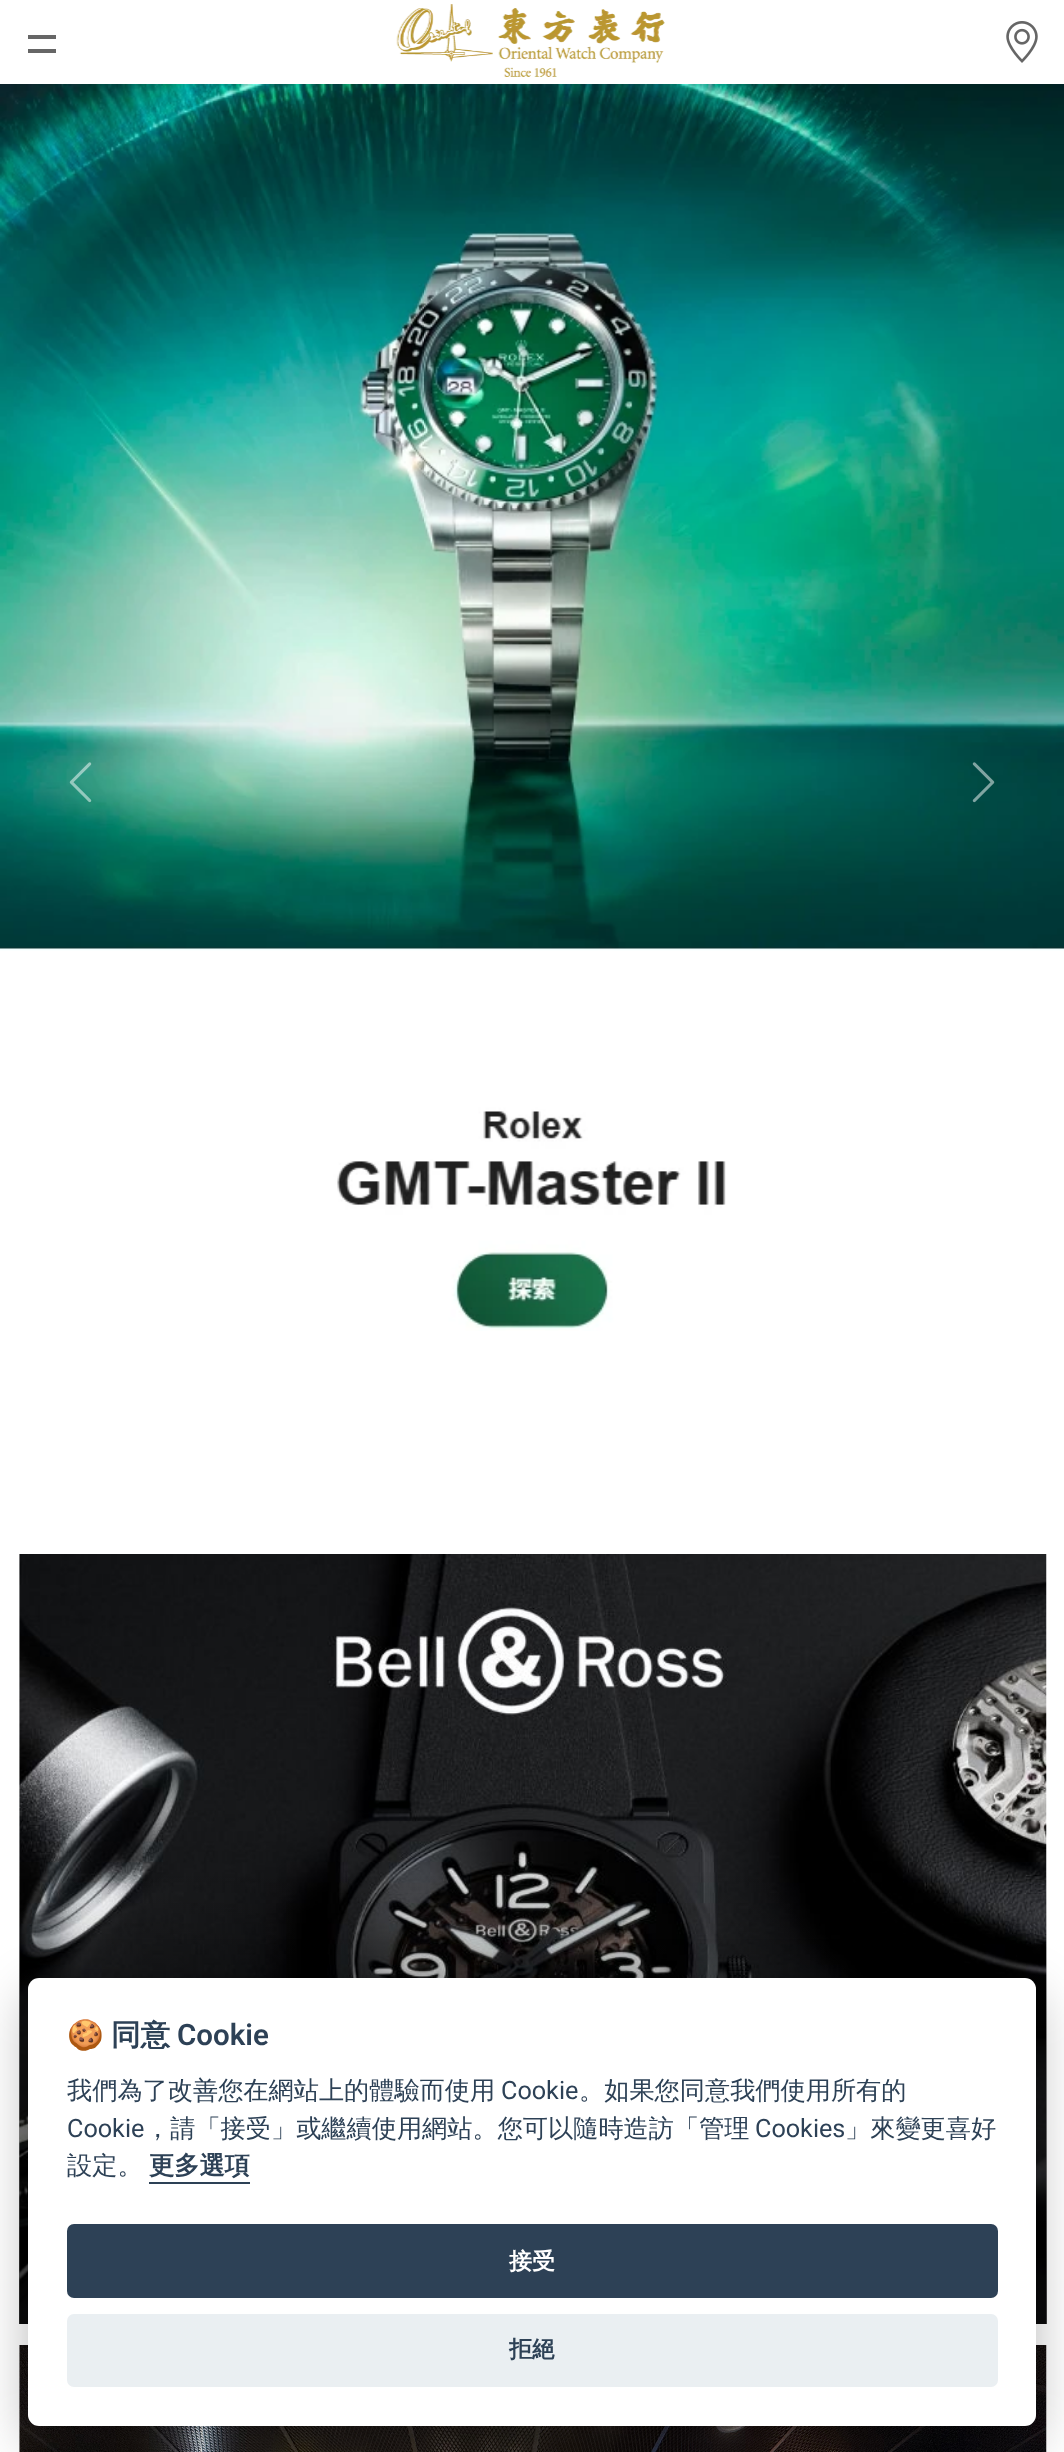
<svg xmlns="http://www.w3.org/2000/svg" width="1064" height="2452">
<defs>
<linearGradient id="g1" gradientUnits="userSpaceOnUse" x1="533" y1="2324" x2="533" y2="1554"><stop offset="0" stop-color="#000" stop-opacity="0.7"/><stop offset="0.6" stop-color="#000" stop-opacity="0"/><stop offset="1" stop-color="#000" stop-opacity="0"/></linearGradient>
</defs>
<rect width="100%" height="100%" fill="#fff"/>
<rect x="28" y="35" width="28" height="4" fill="#666"/>
<rect x="28" y="49" width="28" height="4" fill="#666"/>
<image x="396" y="4" width="269" height="73" href="media/1.png"/>
<image x="1006" y="21" width="32" height="42" href="media/2.png"/>
<image x="0" y="84" width="1064" height="1247" href="media/3.png"/>
<image x="69" y="762" width="23" height="41" href="media/4.png"/>
<image x="972" y="762" width="23" height="41" href="media/5.png"/>
<image x="19" y="1554" width="1028" height="770" href="media/6.png"/>
<rect x="19" y="1876" width="1028" height="448" fill="url(#g1)"/>
<image x="19" y="2345" width="1028" height="107" href="media/7.png"/>
<rect x="28" y="1995" width="1008" height="448" rx="11" fill="#02020347" filter="blur(26px)"/>
<rect x="28" y="1978" width="1008" height="448" rx="11" fill="#fff"/>
<text x="67" y="2045" style="font-family:Noto Color Emoji;font-size:29.5px;font-weight:bold;fill:#2d4156">🍪</text>
<text x="111" y="2045" style="font-family:WenQuanYi Zen Hei;font-size:29.5px;font-weight:bold;fill:#2d4156">同意</text>
<text x="177" y="2045" style="font-family:Roboto;font-size:29.5px;font-weight:600;fill:#2d4156">Cookie</text>
<text x="67" y="2099" style="font-family:WenQuanYi Zen Hei;font-size:25.2px;font-weight:500;fill:#2d4156">我們為了改善您在網站上的體驗而使用</text>
<text x="501" y="2099" style="font-family:Roboto;font-size:25.2px;fill:#2d4156">Cookie</text>
<text x="579" y="2099" style="font-family:WenQuanYi Zen Hei;font-size:25.2px;font-weight:500;fill:#2d4156">。如果您同意我們使用所有的</text>
<text x="67" y="2137" style="font-family:Roboto;font-size:25.2px;fill:#2d4156">Cookie</text>
<text x="145" y="2137" style="font-family:WenQuanYi Zen Hei;font-size:25.2px;font-weight:500;fill:#2d4156">，請「接受」或繼續使用網站。您可以隨時造訪「管理</text>
<text x="755" y="2137" style="font-family:Roboto;font-size:25.2px;fill:#2d4156">Cookies</text>
<text x="845" y="2137" style="font-family:WenQuanYi Zen Hei;font-size:25.2px;font-weight:500;fill:#2d4156">」來變更喜好</text>
<text x="67" y="2174" style="font-family:WenQuanYi Zen Hei;font-size:25.2px;font-weight:500;fill:#2d4156">設定。</text>
<text x="149" y="2174" style="font-family:WenQuanYi Zen Hei;font-size:25.2px;font-weight:bold;fill:#2d4156">更多選項</text>
<rect x="149" y="2182" width="101" height="2" fill="#2d4156"/>
<rect x="67" y="2224" width="931" height="74" rx="7" fill="#2d4156"/>
<text x="509" y="2269" style="font-family:WenQuanYi Zen Hei;font-size:23px;font-weight:bold;fill:#fff">接受</text>
<rect x="67" y="2314" width="931" height="73" rx="7" fill="#eaeff2"/>
<text x="509" y="2357" style="font-family:WenQuanYi Zen Hei;font-size:23px;font-weight:bold;fill:#2d4156">拒絕</text>
</svg>
